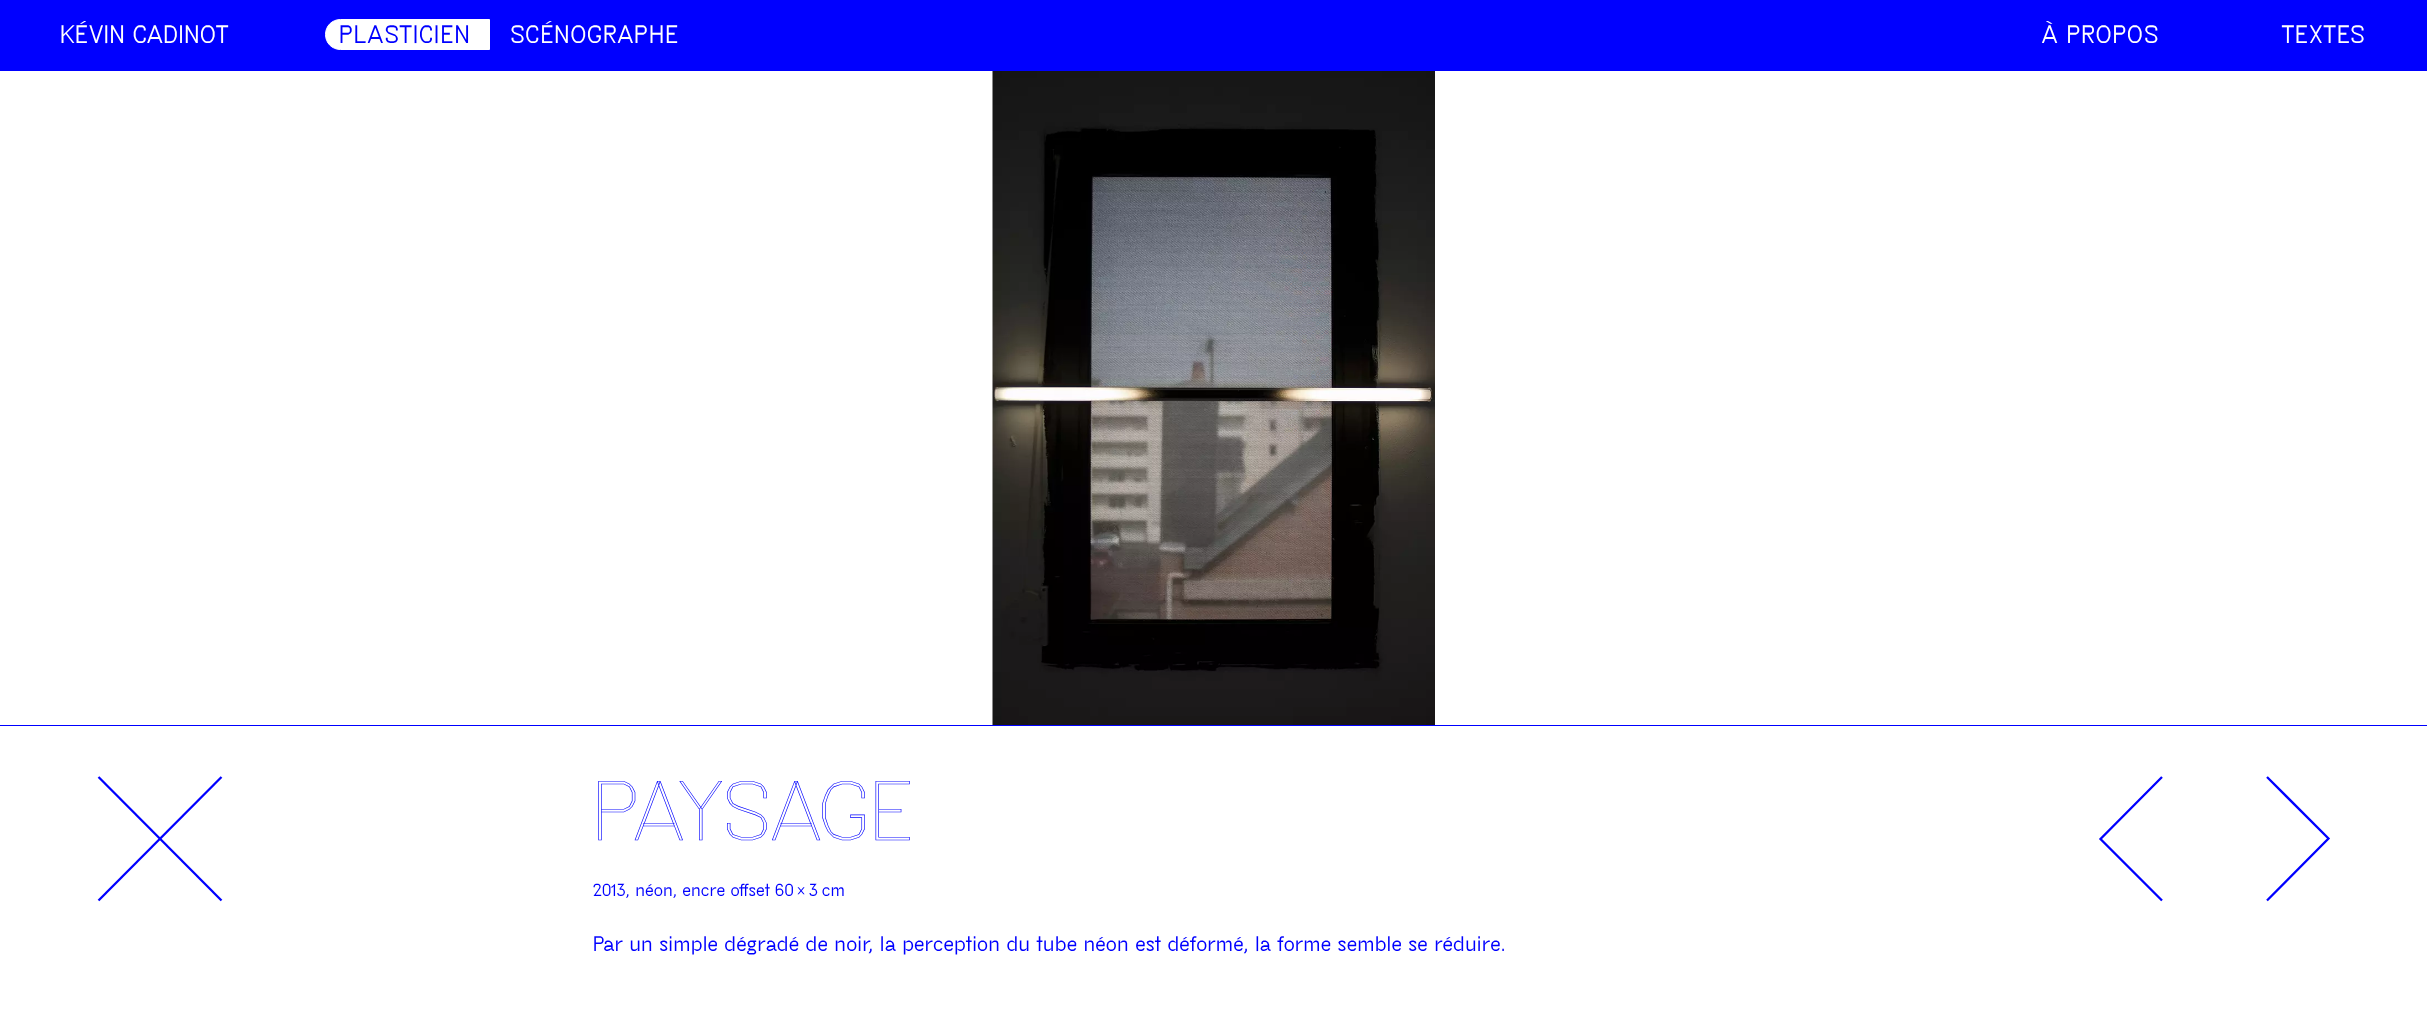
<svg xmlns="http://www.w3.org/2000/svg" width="2427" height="1024">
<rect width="100%" height="100%" fill="#fff"/>
<rect width="2427" height="71" fill="#00f"/>
<text x="60" y="43" style="font-family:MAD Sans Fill;font-size:24px;font-weight:bold;fill:#fff">KÉVIN CADINOT</text>
<path d="M340.5 19.5h149v30h-149c-8.5 0-15-6.5-15-15c0-8.5 6.5-15 15-15z" fill="#fff" stroke="#fff"/>
<text x="339" y="43" style="font-family:MAD Sans Fill;font-size:24px;font-weight:bold;letter-spacing:0.5px;fill:#00f">PLASTICIEN</text>
<text x="510" y="43" style="font-family:MAD Sans Fill;font-size:24px;font-weight:bold;letter-spacing:0.5px;fill:#fff">SCÉNOGRAPHE</text>
<text x="2042" y="43" style="font-family:MAD Sans Fill;font-size:24px;font-weight:bold;letter-spacing:0.5px;fill:#fff">À PROPOS</text>
<text x="2282" y="43" style="font-family:MAD Sans Fill;font-size:24px;font-weight:bold;letter-spacing:0.5px;fill:#fff">TEXTES</text>
<rect y="725" width="2427" height="1" fill="#00f"/>
<image x="992" y="71" width="443" height="654" href="media/1.png"/>
<path d="M98.5 777l123 123.5" fill="none" stroke="#00f" stroke-width="2.3"/>
<path d="M98.5 900.5l123-123.5" fill="none" stroke="#00f" stroke-width="2.3"/>
<text x="593" y="840" style="font-family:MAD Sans;font-size:80px;fill:#00f">PAYSAGE</text>
<text x="593" y="896" style="font-family:MAD Sans Fill;font-size:16.6px;font-weight:bold;fill:#00f">2013, néon, encre offset 60</text>
<text x="797" y="896" style="font-family:MAD Sans Fill;font-size:16.6px;font-weight:bold;fill:#00f">×</text>
<text x="809" y="896" style="font-family:MAD Sans Fill;font-size:16.6px;font-weight:bold;fill:#00f">3</text>
<text x="822" y="896" style="font-family:MAD Sans Fill;font-size:16.6px;font-weight:bold;fill:#00f">cm</text>
<text x="593" y="951" style="font-family:MAD Sans Fill;font-size:20px;font-weight:bold;fill:#00f">Par un simple dégradé de noir, la perception du tube néon est déformé, la forme semble se réduire.</text>
<path d="M2162 777l-61.5 62l61.5 61.5" fill="none" stroke="#00f" stroke-width="2.3"/>
<path d="M2267 900.5l61.5-62l-61.5-61.5" fill="none" stroke="#00f" stroke-width="2.3"/>
</svg>
